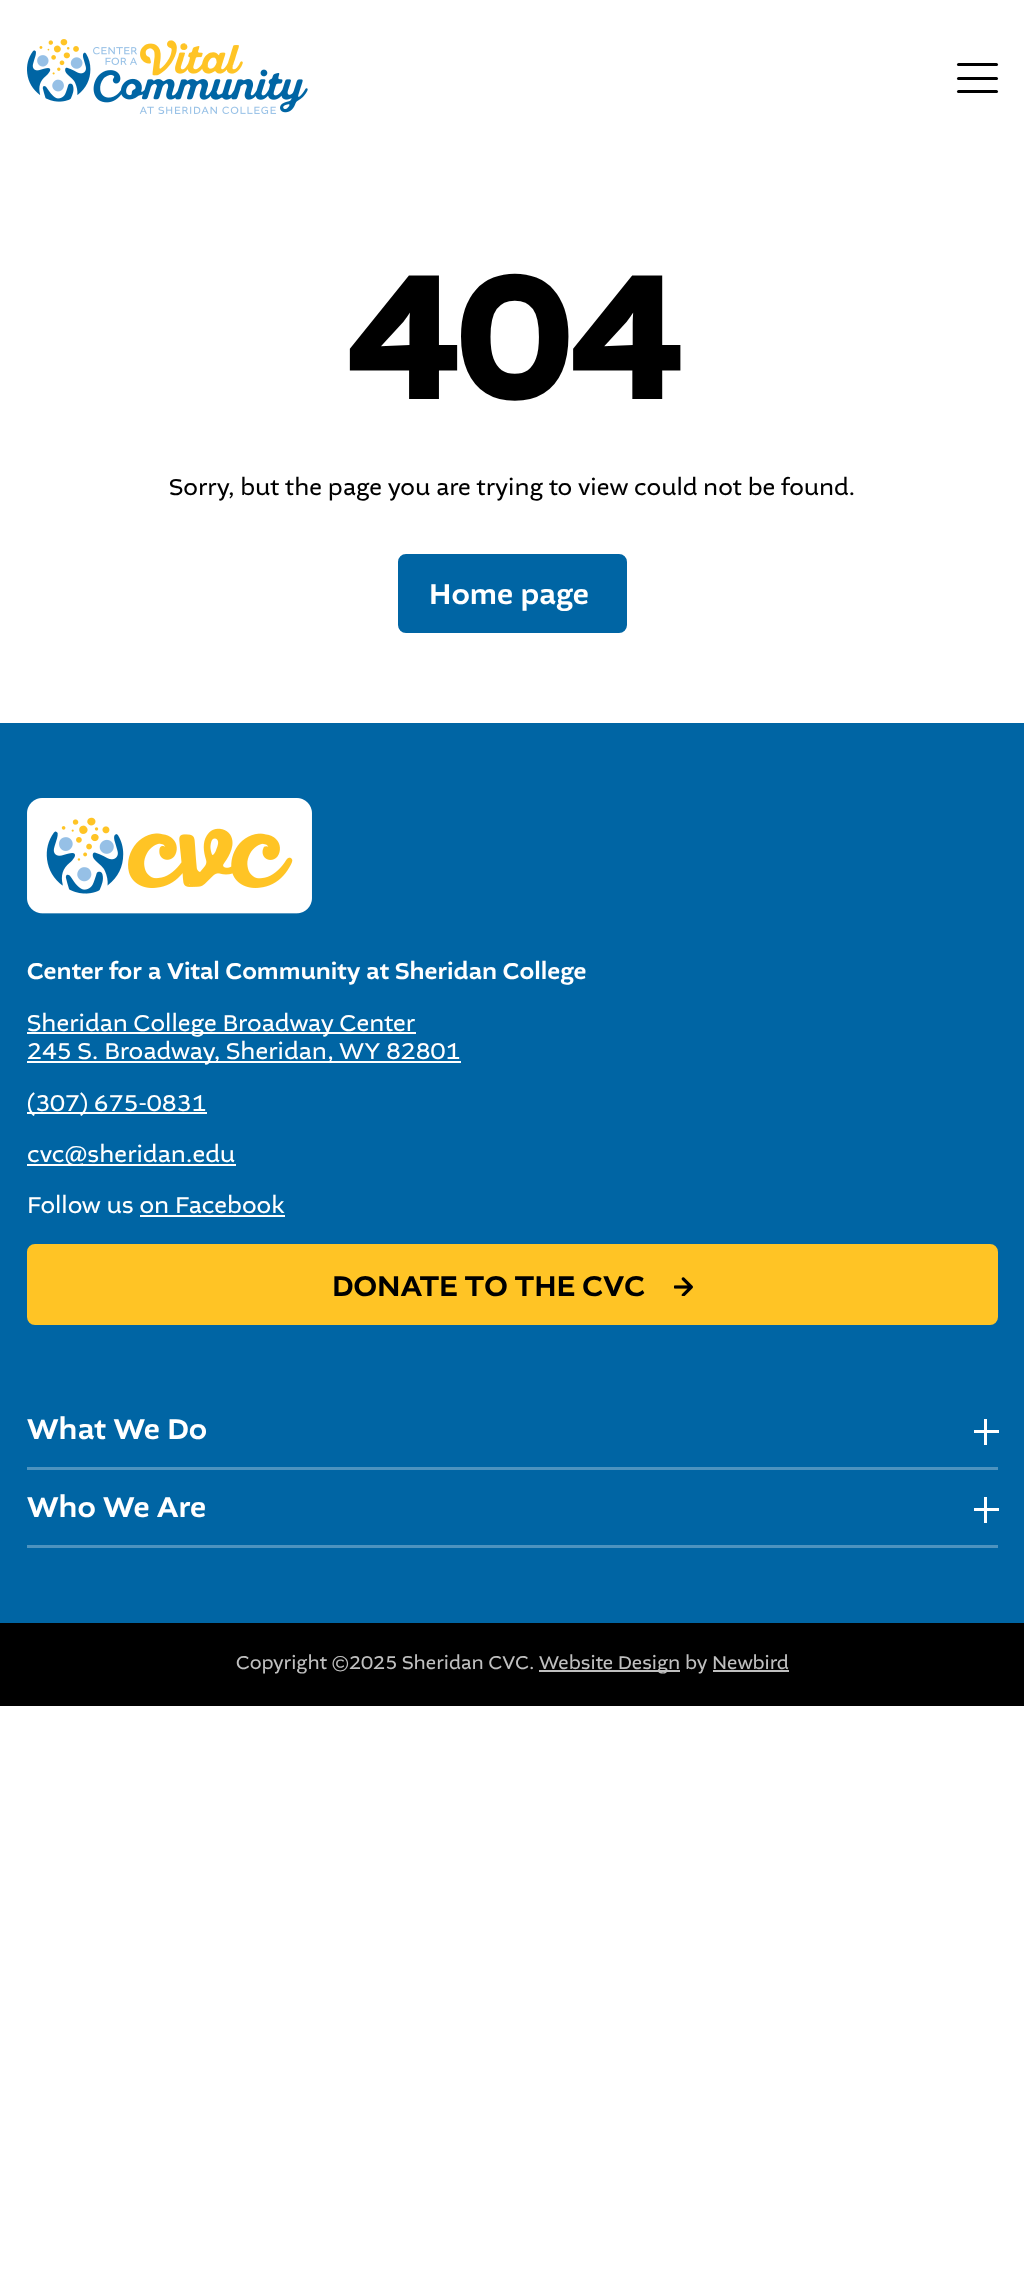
<svg xmlns="http://www.w3.org/2000/svg" width="1024" height="2276">
<rect width="100%" height="100%" fill="#fff"/>
<image x="27" y="39" width="281" height="75" href="media/1.png"/>
<rect x="957" y="63" width="41" height="3" rx="1.5" fill="#000"/>
<rect x="957" y="77" width="41" height="3" rx="1.5" fill="#000"/>
<rect x="957" y="90" width="41" height="3" rx="1.5" fill="#000"/>
<text x="345" y="399" style="font-family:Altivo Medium;font-size:180px;font-weight:bold;fill:#000">404</text>
<text x="169" y="495" style="font-family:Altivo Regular;font-size:24px;fill:#000">Sorry, but the page you are trying to view could not be found.</text>
<rect x="399" y="555" width="227" height="77" rx="7" fill="#0065a4" stroke="#0065a4" stroke-width="2"/>
<text x="429" y="604" style="font-family:Altivo Medium;font-size:30px;font-weight:500;fill:#fff">Home page</text>
<rect y="723" width="1024" height="900" fill="#0065a4"/>
<image x="27" y="798" width="285" height="116" href="media/2.png"/>
<text x="27" y="979" style="font-family:Altivo Medium;font-size:24px;font-weight:500;fill:#fff">Center for a Vital Community at Sheridan College</text>
<rect x="27" y="1032" width="389" height="2" fill="#fff"/>
<text x="27" y="1031" style="font-family:Altivo Regular;font-size:24px;fill:#fff">Sheridan College Broadway Center</text>
<rect x="27" y="1061" width="434" height="2" fill="#fff"/>
<text x="27" y="1059" style="font-family:Altivo Regular;font-size:24px;fill:#fff">245 S. Broadway, Sheridan, WY 82801</text>
<rect x="27" y="1112" width="180" height="2" fill="#fff"/>
<text x="27" y="1111" style="font-family:Altivo Regular;font-size:24px;fill:#fff">(307) 675-0831</text>
<rect x="27" y="1164" width="209" height="2" fill="#fff"/>
<text x="27" y="1162" style="font-family:Altivo Regular;font-size:24px;fill:#fff">cvc@sheridan.edu</text>
<text x="27" y="1213" style="font-family:Altivo Regular;font-size:24px;fill:#fff">Follow us on Facebook</text>
<rect x="140" y="1215" width="145" height="2" fill="#fff"/>
<rect x="28" y="1245" width="969" height="79" rx="7" fill="#ffc425" stroke="#ffc425" stroke-width="2"/>
<text x="332" y="1296" style="font-family:Altivo Medium;font-size:30px;font-weight:500;fill:#000">DONATE TO THE CVC</text>
<image x="674" y="1277" width="19" height="19" href="media/3.png"/>
<rect x="27" y="1467" width="971" height="3" fill="#4d93bf"/>
<text x="27" y="1439" style="font-family:Altivo Medium;font-size:30px;font-weight:500;fill:#fff">What We Do</text>
<rect x="984" y="1419" width="3" height="26" fill="#fff"/>
<rect x="974" y="1430" width="25" height="3" fill="#fff"/>
<rect x="27" y="1545" width="971" height="3" fill="#4d93bf"/>
<text x="27" y="1517" style="font-family:Altivo Medium;font-size:30px;font-weight:500;fill:#fff">Who We Are</text>
<rect x="984" y="1497" width="3" height="26" fill="#fff"/>
<rect x="974" y="1508" width="25" height="3" fill="#fff"/>
<rect y="1623" width="1024" height="83" fill="#000"/>
<text x="236" y="1669" style="font-family:Altivo Regular;font-size:19.5px;fill:#bfbfbf">Copyright ©2025 Sheridan CVC.</text>
<rect x="539" y="1670" width="141" height="2" fill="#bfbfbf"/>
<text x="539" y="1669" style="font-family:Altivo Regular;font-size:19.5px;fill:#bfbfbf">Website Design</text>
<text x="685" y="1669" style="font-family:Altivo Regular;font-size:19.5px;fill:#bfbfbf">by Newbird</text>
<rect x="713" y="1670" width="76" height="2" fill="#bfbfbf"/>
</svg>
